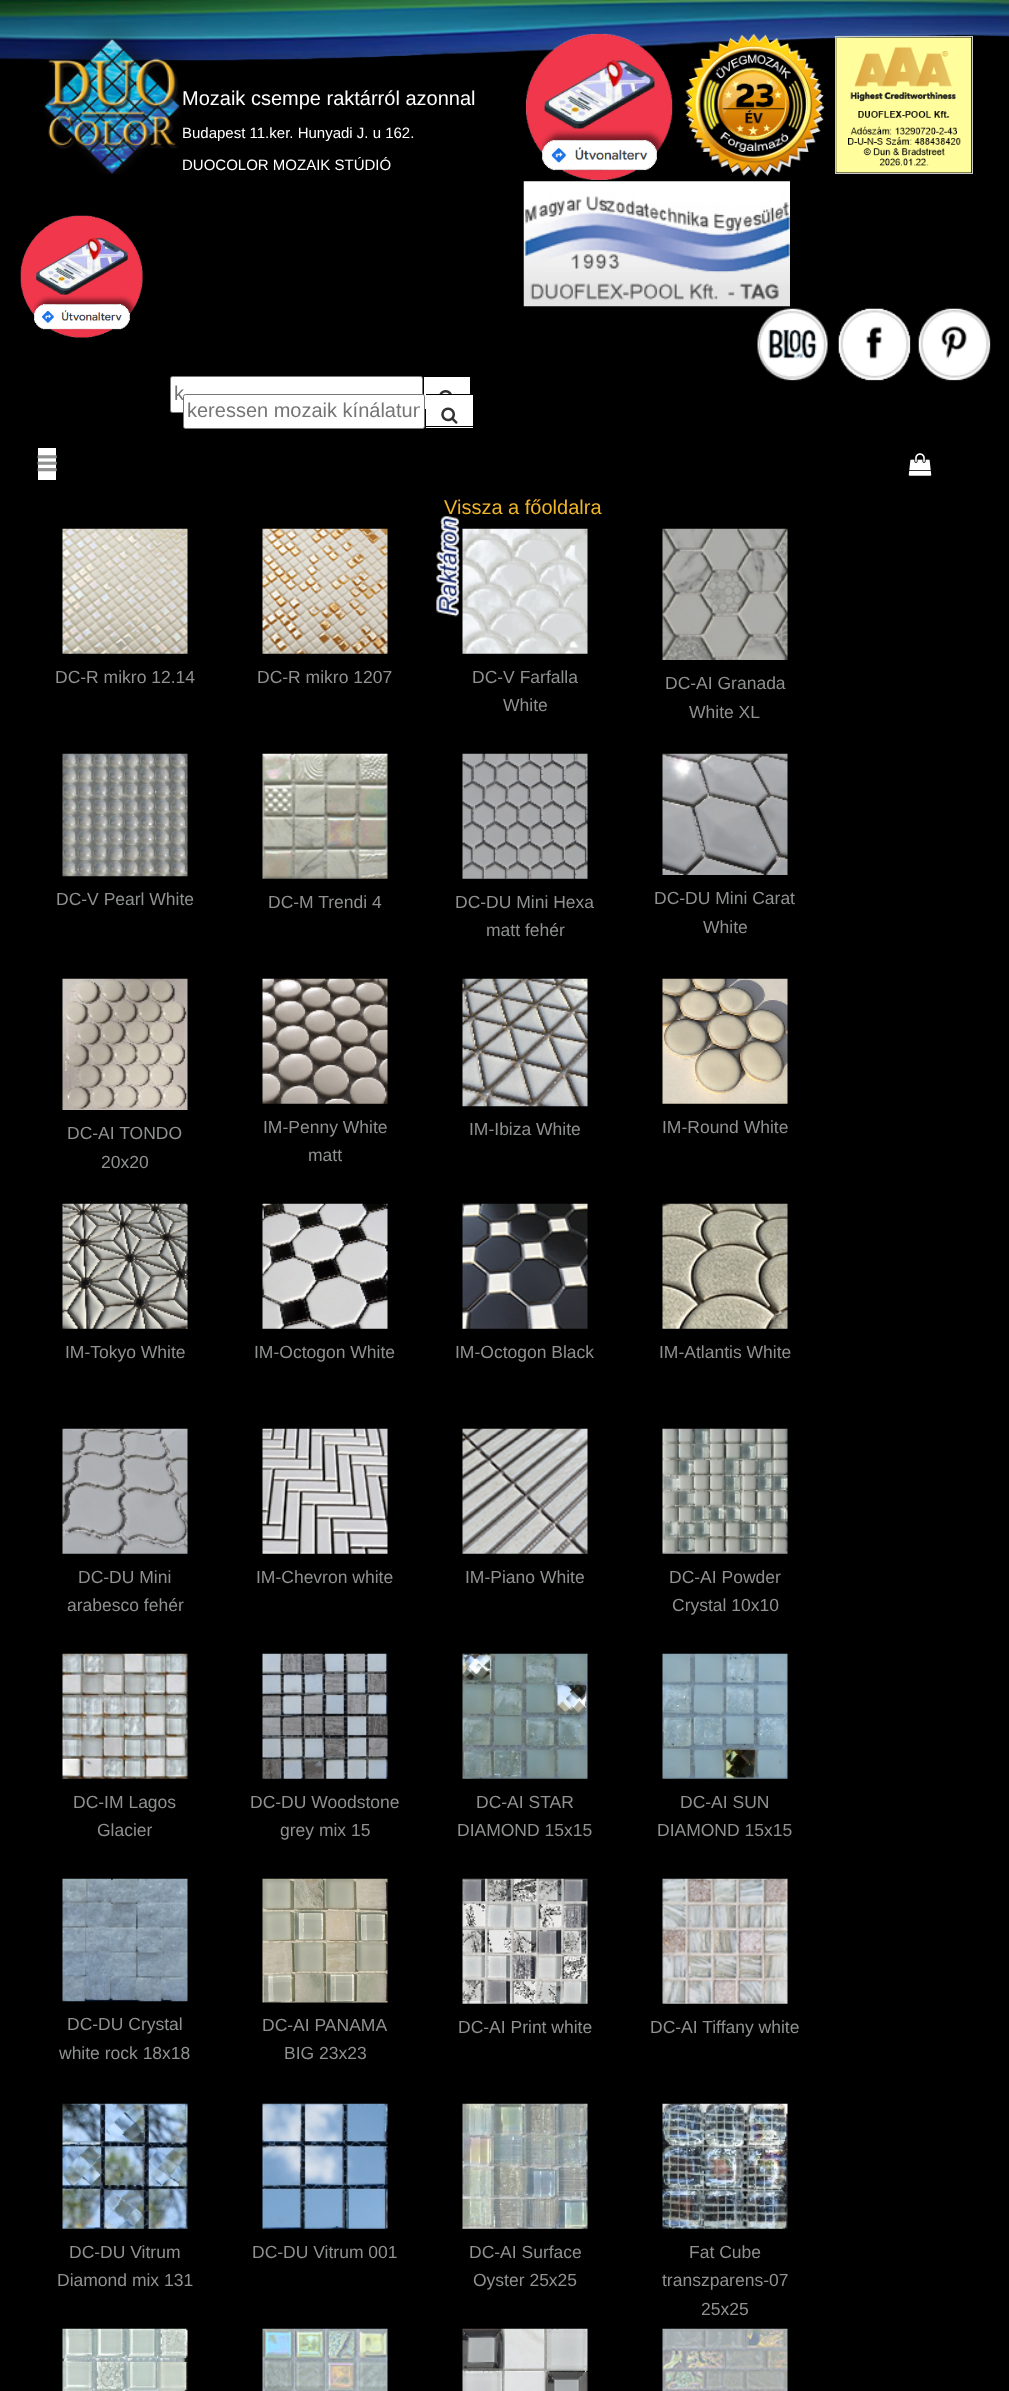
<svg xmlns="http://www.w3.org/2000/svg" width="1009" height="2391">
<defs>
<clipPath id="clip1"><rect x="188" y="400" width="232" height="23"/></clipPath>
</defs>
<rect width="100%" height="100%" fill="#000"/>
<image x="0" y="0" width="1009" height="61" href="media/1.png"/>
<image x="41" y="22" width="146" height="152" href="media/2.png"/>
<text x="182" y="105" style="font-family:Liberation Sans;font-size:20px;fill:#fff">Mozaik csempe raktárról azonnal</text>
<text x="182" y="138" style="font-family:Liberation Sans;font-size:15px;fill:#fff">Budapest 11.ker. Hunyadi J. u 162.</text>
<text x="182" y="170" style="font-family:Liberation Sans;font-size:15px;fill:#fff">DUOCOLOR MOZAIK STÚDIÓ</text>
<image x="20" y="215" width="123" height="123" href="media/3.png"/>
<rect x="170.5" y="376.5" width="252" height="36" rx="2" fill="#fff" stroke="#767676"/>
<text x="174" y="400" style="font-family:Liberation Sans;font-size:20px;fill:#757575">k</text>
<rect x="424" y="377" width="46" height="32" fill="#fff"/>
<image x="439" y="390" width="13" height="4" href="media/4.png"/>
<rect x="183.5" y="394.5" width="241" height="34" rx="2" fill="#fff" stroke="#767676"/>
<g clip-path="url(#clip1)">
<text x="187" y="417" style="font-family:Liberation Sans;font-size:20px;fill:#757575">keressen mozaik kínálatun</text>
</g>
<rect x="426" y="395" width="47" height="33" fill="#fff"/>
<rect x="426" y="394" width="48" height="1" fill="#000"/>
<rect x="426" y="426" width="48" height="1" fill="#000"/>
<image x="441" y="407" width="17" height="17" href="media/5.png"/>
<image x="526" y="33" width="147" height="147" href="media/6.png"/>
<image x="684" y="33" width="141" height="144" href="media/7.png"/>
<rect x="835.5" y="36.5" width="137" height="137" fill="none" stroke="#ccc"/>
<image x="836" y="37" width="136" height="136" href="media/8.png"/>
<image x="523" y="181" width="267" height="126" href="media/9.png"/>
<image x="757" y="308" width="71" height="73" href="media/10.png"/>
<image x="838" y="308" width="73" height="73" href="media/11.png"/>
<image x="918" y="308" width="73" height="73" href="media/12.png"/>
<rect x="38" y="448" width="18" height="32" fill="#fff"/>
<image x="37" y="455" width="20" height="17" href="media/13.png"/>
<image x="908" y="453" width="24" height="23" href="media/14.png"/>
<text x="444" y="514" style="font-family:Liberation Sans;font-size:20px;fill:#efb52a">Vissza a főoldalra</text>
<image x="62" y="528" width="126" height="126" href="media/15.png"/>
<text x="55" y="683" style="font-family:Liberation Sans;font-size:17.5px;fill:#8f9190">DC-R mikro 12.14</text>
<image x="262" y="528" width="126" height="126" href="media/16.png"/>
<text x="257" y="683" style="font-family:Liberation Sans;font-size:17.5px;fill:#8f9190">DC-R mikro 1207</text>
<image x="436" y="516" width="25" height="101" href="media/17.png"/>
<image x="462" y="528" width="126" height="126" href="media/18.png"/>
<text x="472" y="683" style="font-family:Liberation Sans;font-size:17.5px;fill:#8f9190">DC-V Farfalla</text>
<text x="503" y="711" style="font-family:Liberation Sans;font-size:17.5px;fill:#8f9190">White</text>
<image x="662" y="528" width="126" height="132" href="media/19.png"/>
<text x="665" y="689" style="font-family:Liberation Sans;font-size:17.5px;fill:#8f9190">DC-AI Granada</text>
<text x="689" y="718" style="font-family:Liberation Sans;font-size:17.5px;fill:#8f9190">White XL</text>
<image x="62" y="753" width="126" height="124" href="media/20.png"/>
<text x="56" y="905" style="font-family:Liberation Sans;font-size:17.5px;fill:#8f9190">DC-V Pearl White</text>
<image x="262" y="753" width="126" height="126" href="media/21.png"/>
<text x="268" y="908" style="font-family:Liberation Sans;font-size:17.5px;fill:#8f9190">DC-M Trendi 4</text>
<image x="462" y="753" width="126" height="126" href="media/22.png"/>
<text x="455" y="908" style="font-family:Liberation Sans;font-size:17.5px;fill:#8f9190">DC-DU Mini Hexa</text>
<text x="486" y="936" style="font-family:Liberation Sans;font-size:17.5px;fill:#8f9190">matt fehér</text>
<image x="662" y="753" width="126" height="122" href="media/23.png"/>
<text x="654" y="904" style="font-family:Liberation Sans;font-size:17.5px;fill:#8f9190">DC-DU Mini Carat</text>
<text x="703" y="933" style="font-family:Liberation Sans;font-size:17.5px;fill:#8f9190">White</text>
<image x="62" y="978" width="126" height="132" href="media/24.png"/>
<text x="67" y="1139" style="font-family:Liberation Sans;font-size:17.5px;fill:#8f9190">DC-AI TONDO</text>
<text x="101" y="1168" style="font-family:Liberation Sans;font-size:17.5px;fill:#8f9190">20x20</text>
<image x="262" y="978" width="126" height="126" href="media/25.png"/>
<text x="263" y="1133" style="font-family:Liberation Sans;font-size:17.5px;fill:#8f9190">IM-Penny White</text>
<text x="308" y="1161" style="font-family:Liberation Sans;font-size:17.5px;fill:#8f9190">matt</text>
<image x="462" y="978" width="126" height="129" href="media/26.png"/>
<text x="469" y="1135" style="font-family:Liberation Sans;font-size:17.5px;fill:#8f9190">IM-Ibiza White</text>
<image x="662" y="978" width="126" height="126" href="media/27.png"/>
<text x="662" y="1133" style="font-family:Liberation Sans;font-size:17.5px;fill:#8f9190">IM-Round White</text>
<image x="62" y="1203" width="126" height="126" href="media/28.png"/>
<text x="65" y="1358" style="font-family:Liberation Sans;font-size:17.5px;fill:#8f9190">IM-Tokyo White</text>
<image x="262" y="1203" width="126" height="126" href="media/29.png"/>
<text x="254" y="1358" style="font-family:Liberation Sans;font-size:17.5px;fill:#8f9190">IM-Octogon White</text>
<image x="462" y="1203" width="126" height="126" href="media/30.png"/>
<text x="455" y="1358" style="font-family:Liberation Sans;font-size:17.5px;fill:#8f9190">IM-Octogon Black</text>
<image x="662" y="1203" width="126" height="126" href="media/31.png"/>
<text x="659" y="1358" style="font-family:Liberation Sans;font-size:17.5px;fill:#8f9190">IM-Atlantis White</text>
<image x="62" y="1428" width="126" height="126" href="media/32.png"/>
<text x="78" y="1583" style="font-family:Liberation Sans;font-size:17.5px;fill:#8f9190">DC-DU Mini</text>
<text x="67" y="1611" style="font-family:Liberation Sans;font-size:17.5px;fill:#8f9190">arabesco fehér</text>
<image x="262" y="1428" width="126" height="126" href="media/33.png"/>
<text x="256" y="1583" style="font-family:Liberation Sans;font-size:17.5px;fill:#8f9190">IM-Chevron white</text>
<image x="462" y="1428" width="126" height="126" href="media/34.png"/>
<text x="465" y="1583" style="font-family:Liberation Sans;font-size:17.5px;fill:#8f9190">IM-Piano White</text>
<image x="662" y="1428" width="126" height="126" href="media/35.png"/>
<text x="669" y="1583" style="font-family:Liberation Sans;font-size:17.5px;fill:#8f9190">DC-AI Powder</text>
<text x="672" y="1611" style="font-family:Liberation Sans;font-size:17.5px;fill:#8f9190">Crystal 10x10</text>
<image x="62" y="1653" width="126" height="126" href="media/36.png"/>
<text x="73" y="1808" style="font-family:Liberation Sans;font-size:17.5px;fill:#8f9190">DC-IM Lagos</text>
<text x="97" y="1836" style="font-family:Liberation Sans;font-size:17.5px;fill:#8f9190">Glacier</text>
<image x="262" y="1653" width="126" height="126" href="media/37.png"/>
<text x="250" y="1808" style="font-family:Liberation Sans;font-size:17.5px;fill:#8f9190">DC-DU Woodstone</text>
<text x="280" y="1836" style="font-family:Liberation Sans;font-size:17.5px;fill:#8f9190">grey mix 15</text>
<image x="462" y="1653" width="126" height="126" href="media/38.png"/>
<text x="476" y="1808" style="font-family:Liberation Sans;font-size:17.5px;fill:#8f9190">DC-AI STAR</text>
<text x="457" y="1836" style="font-family:Liberation Sans;font-size:17.5px;fill:#8f9190">DIAMOND 15x15</text>
<image x="662" y="1653" width="126" height="126" href="media/39.png"/>
<text x="680" y="1808" style="font-family:Liberation Sans;font-size:17.5px;fill:#8f9190">DC-AI SUN</text>
<text x="657" y="1836" style="font-family:Liberation Sans;font-size:17.5px;fill:#8f9190">DIAMOND 15x15</text>
<image x="62" y="1878" width="126" height="124" href="media/40.png"/>
<text x="67" y="2030" style="font-family:Liberation Sans;font-size:17.5px;fill:#8f9190">DC-DU Crystal</text>
<text x="59" y="2059" style="font-family:Liberation Sans;font-size:17.5px;fill:#8f9190">white rock 18x18</text>
<image x="262" y="1878" width="126" height="125" href="media/41.png"/>
<text x="262" y="2031" style="font-family:Liberation Sans;font-size:17.5px;fill:#8f9190">DC-AI PANAMA</text>
<text x="284" y="2059" style="font-family:Liberation Sans;font-size:17.5px;fill:#8f9190">BIG 23x23</text>
<image x="462" y="1878" width="126" height="126" href="media/42.png"/>
<text x="458" y="2033" style="font-family:Liberation Sans;font-size:17.5px;fill:#8f9190">DC-AI Print white</text>
<image x="662" y="1878" width="126" height="126" href="media/43.png"/>
<text x="650" y="2033" style="font-family:Liberation Sans;font-size:17.5px;fill:#8f9190">DC-AI Tiffany white</text>
<image x="62" y="2103" width="126" height="126" href="media/44.png"/>
<text x="69" y="2258" style="font-family:Liberation Sans;font-size:17.5px;fill:#8f9190">DC-DU Vitrum</text>
<text x="57" y="2286" style="font-family:Liberation Sans;font-size:17.5px;fill:#8f9190">Diamond mix 131</text>
<image x="262" y="2103" width="126" height="126" href="media/45.png"/>
<text x="252" y="2258" style="font-family:Liberation Sans;font-size:17.5px;fill:#8f9190">DC-DU Vitrum 001</text>
<image x="462" y="2103" width="126" height="126" href="media/46.png"/>
<text x="469" y="2258" style="font-family:Liberation Sans;font-size:17.5px;fill:#8f9190">DC-AI Surface</text>
<text x="473" y="2286" style="font-family:Liberation Sans;font-size:17.5px;fill:#8f9190">Oyster 25x25</text>
<image x="662" y="2103" width="126" height="126" href="media/47.png"/>
<text x="689" y="2258" style="font-family:Liberation Sans;font-size:17.5px;fill:#8f9190">Fat Cube</text>
<text x="662" y="2286" style="font-family:Liberation Sans;font-size:17.5px;fill:#8f9190">transzparens-07</text>
<text x="701" y="2315" style="font-family:Liberation Sans;font-size:17.5px;fill:#8f9190">25x25</text>
<image x="62" y="2328" width="126" height="63" href="media/48.png"/>
<image x="262" y="2328" width="126" height="63" href="media/49.png"/>
<image x="462" y="2328" width="126" height="63" href="media/50.png"/>
<image x="662" y="2328" width="126" height="63" href="media/51.png"/>
</svg>
